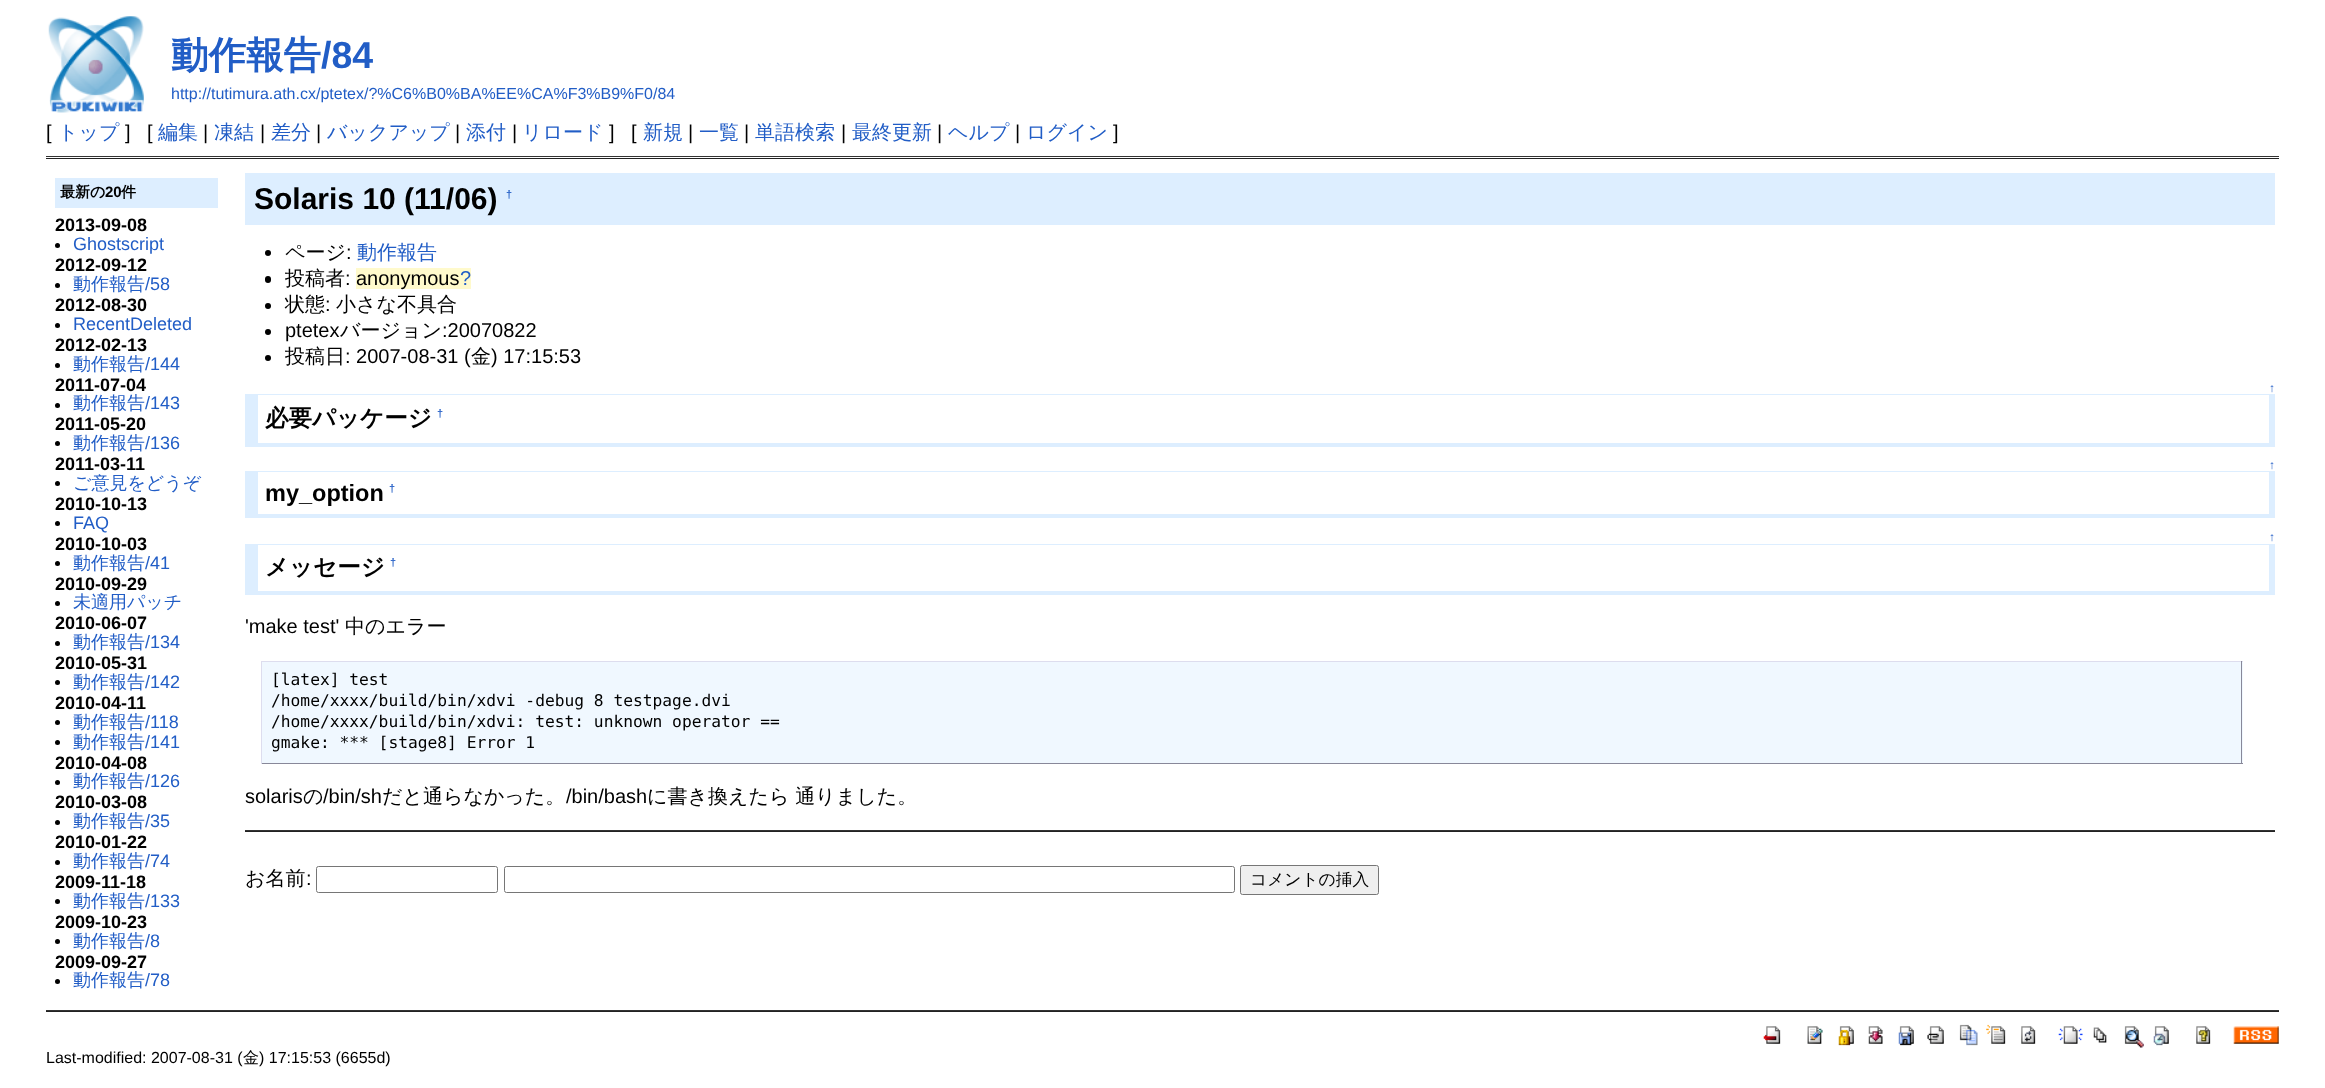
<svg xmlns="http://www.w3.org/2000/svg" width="2325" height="1088">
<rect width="100%" height="100%" fill="#fff"/>
<image x="48" y="16" width="96" height="97" href="media/1.png"/>
<text x="171" y="68" style="font-family:WenQuanYi Zen Hei;font-size:37.5px;font-weight:bold;fill:#215dc6">動作報告</text>
<text x="321" y="68" style="font-family:Liberation Sans;font-size:37.5px;font-weight:bold;fill:#215dc6">/84</text>
<text x="171" y="99" style="font-family:Liberation Sans;font-size:16px;fill:#215dc6">http://tutimura.ath.cx/ptetex/?%C6%B0%BA%EE%CA%F3%B9%F0/84</text>
<text x="46" y="139" style="font-family:Liberation Sans;font-size:20px;fill:#000">[</text>
<text x="58" y="139" style="font-family:WenQuanYi Zen Hei;font-size:20px;font-weight:500;fill:#215dc6">トップ</text>
<text x="125" y="139" style="font-family:Liberation Sans;font-size:20px;fill:#000">]</text>
<text x="147" y="139" style="font-family:Liberation Sans;font-size:20px;fill:#000">[</text>
<text x="158" y="139" style="font-family:WenQuanYi Zen Hei;font-size:20px;font-weight:500;fill:#215dc6">編集</text>
<text x="203" y="139" style="font-family:Liberation Sans;font-size:20px;fill:#000">|</text>
<text x="214" y="139" style="font-family:WenQuanYi Zen Hei;font-size:20px;font-weight:500;fill:#215dc6">凍結</text>
<text x="260" y="139" style="font-family:Liberation Sans;font-size:20px;fill:#000">|</text>
<text x="271" y="139" style="font-family:WenQuanYi Zen Hei;font-size:20px;font-weight:500;fill:#215dc6">差分</text>
<text x="316" y="139" style="font-family:Liberation Sans;font-size:20px;fill:#000">|</text>
<text x="327" y="139" style="font-family:WenQuanYi Zen Hei;font-size:20px;font-weight:500;fill:#215dc6">バックアップ</text>
<text x="455" y="139" style="font-family:Liberation Sans;font-size:20px;fill:#000">|</text>
<text x="466" y="139" style="font-family:WenQuanYi Zen Hei;font-size:20px;font-weight:500;fill:#215dc6">添付</text>
<text x="512" y="139" style="font-family:Liberation Sans;font-size:20px;fill:#000">|</text>
<text x="522" y="139" style="font-family:WenQuanYi Zen Hei;font-size:20px;font-weight:500;fill:#215dc6">リロード</text>
<text x="609" y="139" style="font-family:Liberation Sans;font-size:20px;fill:#000">]</text>
<text x="631" y="139" style="font-family:Liberation Sans;font-size:20px;fill:#000">[</text>
<text x="643" y="139" style="font-family:WenQuanYi Zen Hei;font-size:20px;font-weight:500;fill:#215dc6">新規</text>
<text x="688" y="139" style="font-family:Liberation Sans;font-size:20px;fill:#000">|</text>
<text x="699" y="139" style="font-family:WenQuanYi Zen Hei;font-size:20px;font-weight:500;fill:#215dc6">一覧</text>
<text x="744" y="139" style="font-family:Liberation Sans;font-size:20px;fill:#000">|</text>
<text x="755" y="139" style="font-family:WenQuanYi Zen Hei;font-size:20px;font-weight:500;fill:#215dc6">単語検索</text>
<text x="841" y="139" style="font-family:Liberation Sans;font-size:20px;fill:#000">|</text>
<text x="852" y="139" style="font-family:WenQuanYi Zen Hei;font-size:20px;font-weight:500;fill:#215dc6">最終更新</text>
<text x="937" y="139" style="font-family:Liberation Sans;font-size:20px;fill:#000">|</text>
<text x="948" y="139" style="font-family:WenQuanYi Zen Hei;font-size:20px;font-weight:500;fill:#215dc6">ヘルプ</text>
<text x="1015" y="139" style="font-family:Liberation Sans;font-size:20px;fill:#000">|</text>
<text x="1026" y="139" style="font-family:WenQuanYi Zen Hei;font-size:20px;font-weight:500;fill:#215dc6">ログイン</text>
<text x="1113" y="139" style="font-family:Liberation Sans;font-size:20px;fill:#000">]</text>
<rect x="46" y="156" width="2233" height="1" fill="#333"/>
<rect x="46" y="158" width="2233" height="1" fill="#222"/>
<rect x="55" y="178" width="163" height="30" fill="#def"/>
<text x="60" y="197" style="font-family:WenQuanYi Zen Hei;font-size:15px;font-weight:bold;fill:#000">最新の</text>
<text x="105" y="197" style="font-family:Liberation Sans;font-size:15px;font-weight:bold;fill:#000">20</text>
<text x="121" y="197" style="font-family:WenQuanYi Zen Hei;font-size:15px;font-weight:bold;fill:#000">件</text>
<text x="55" y="231" style="font-family:Liberation Sans;font-size:18px;font-weight:bold;fill:#000">2013-09-08</text>
<circle cx="57.5" cy="245.5" r="2.5" fill="#000"/>
<text x="73" y="250" style="font-family:Liberation Sans;font-size:18px;fill:#215dc6">Ghostscript</text>
<text x="55" y="271" style="font-family:Liberation Sans;font-size:18px;font-weight:bold;fill:#000">2012-09-12</text>
<circle cx="57.5" cy="285.5" r="2.5" fill="#000"/>
<text x="73" y="290" style="font-family:WenQuanYi Zen Hei;font-size:18px;font-weight:500;fill:#215dc6">動作報告</text>
<text x="145" y="290" style="font-family:Liberation Sans;font-size:18px;fill:#215dc6">/58</text>
<text x="55" y="311" style="font-family:Liberation Sans;font-size:18px;font-weight:bold;fill:#000">2012-08-30</text>
<circle cx="57.5" cy="325.5" r="2.5" fill="#000"/>
<text x="73" y="330" style="font-family:Liberation Sans;font-size:18px;fill:#215dc6">RecentDeleted</text>
<text x="55" y="351" style="font-family:Liberation Sans;font-size:18px;font-weight:bold;fill:#000">2012-02-13</text>
<circle cx="57.5" cy="365.5" r="2.5" fill="#000"/>
<text x="73" y="370" style="font-family:WenQuanYi Zen Hei;font-size:18px;font-weight:500;fill:#215dc6">動作報告</text>
<text x="145" y="370" style="font-family:Liberation Sans;font-size:18px;fill:#215dc6">/144</text>
<text x="55" y="391" style="font-family:Liberation Sans;font-size:18px;font-weight:bold;fill:#000">2011-07-04</text>
<circle cx="57.5" cy="405.5" r="2.5" fill="#000"/>
<text x="73" y="409" style="font-family:WenQuanYi Zen Hei;font-size:18px;font-weight:500;fill:#215dc6">動作報告</text>
<text x="145" y="409" style="font-family:Liberation Sans;font-size:18px;fill:#215dc6">/143</text>
<text x="55" y="430" style="font-family:Liberation Sans;font-size:18px;font-weight:bold;fill:#000">2011-05-20</text>
<circle cx="57.5" cy="443.5" r="2.5" fill="#000"/>
<text x="73" y="449" style="font-family:WenQuanYi Zen Hei;font-size:18px;font-weight:500;fill:#215dc6">動作報告</text>
<text x="145" y="449" style="font-family:Liberation Sans;font-size:18px;fill:#215dc6">/136</text>
<text x="55" y="470" style="font-family:Liberation Sans;font-size:18px;font-weight:bold;fill:#000">2011-03-11</text>
<circle cx="57.5" cy="483.5" r="2.5" fill="#000"/>
<text x="73" y="489" style="font-family:WenQuanYi Zen Hei;font-size:18px;font-weight:500;fill:#215dc6">ご意見をどうぞ</text>
<text x="55" y="510" style="font-family:Liberation Sans;font-size:18px;font-weight:bold;fill:#000">2010-10-13</text>
<circle cx="57.5" cy="523.5" r="2.5" fill="#000"/>
<text x="73" y="529" style="font-family:Liberation Sans;font-size:18px;fill:#215dc6">FAQ</text>
<text x="55" y="550" style="font-family:Liberation Sans;font-size:18px;font-weight:bold;fill:#000">2010-10-03</text>
<circle cx="57.5" cy="563.5" r="2.5" fill="#000"/>
<text x="73" y="569" style="font-family:WenQuanYi Zen Hei;font-size:18px;font-weight:500;fill:#215dc6">動作報告</text>
<text x="145" y="569" style="font-family:Liberation Sans;font-size:18px;fill:#215dc6">/41</text>
<text x="55" y="590" style="font-family:Liberation Sans;font-size:18px;font-weight:bold;fill:#000">2010-09-29</text>
<circle cx="57.5" cy="603.5" r="2.5" fill="#000"/>
<text x="73" y="608" style="font-family:WenQuanYi Zen Hei;font-size:18px;font-weight:500;fill:#215dc6">未適用パッチ</text>
<text x="55" y="629" style="font-family:Liberation Sans;font-size:18px;font-weight:bold;fill:#000">2010-06-07</text>
<circle cx="57.5" cy="643.5" r="2.5" fill="#000"/>
<text x="73" y="648" style="font-family:WenQuanYi Zen Hei;font-size:18px;font-weight:500;fill:#215dc6">動作報告</text>
<text x="145" y="648" style="font-family:Liberation Sans;font-size:18px;fill:#215dc6">/134</text>
<text x="55" y="669" style="font-family:Liberation Sans;font-size:18px;font-weight:bold;fill:#000">2010-05-31</text>
<circle cx="57.5" cy="682.5" r="2.5" fill="#000"/>
<text x="73" y="688" style="font-family:WenQuanYi Zen Hei;font-size:18px;font-weight:500;fill:#215dc6">動作報告</text>
<text x="145" y="688" style="font-family:Liberation Sans;font-size:18px;fill:#215dc6">/142</text>
<text x="55" y="709" style="font-family:Liberation Sans;font-size:18px;font-weight:bold;fill:#000">2010-04-11</text>
<circle cx="57.5" cy="722.5" r="2.5" fill="#000"/>
<text x="73" y="728" style="font-family:WenQuanYi Zen Hei;font-size:18px;font-weight:500;fill:#215dc6">動作報告</text>
<text x="145" y="728" style="font-family:Liberation Sans;font-size:18px;fill:#215dc6">/118</text>
<circle cx="57.5" cy="742.5" r="2.5" fill="#000"/>
<text x="73" y="748" style="font-family:WenQuanYi Zen Hei;font-size:18px;font-weight:500;fill:#215dc6">動作報告</text>
<text x="145" y="748" style="font-family:Liberation Sans;font-size:18px;fill:#215dc6">/141</text>
<text x="55" y="769" style="font-family:Liberation Sans;font-size:18px;font-weight:bold;fill:#000">2010-04-08</text>
<circle cx="57.5" cy="782.5" r="2.5" fill="#000"/>
<text x="73" y="787" style="font-family:WenQuanYi Zen Hei;font-size:18px;font-weight:500;fill:#215dc6">動作報告</text>
<text x="145" y="787" style="font-family:Liberation Sans;font-size:18px;fill:#215dc6">/126</text>
<text x="55" y="808" style="font-family:Liberation Sans;font-size:18px;font-weight:bold;fill:#000">2010-03-08</text>
<circle cx="57.5" cy="822.5" r="2.5" fill="#000"/>
<text x="73" y="827" style="font-family:WenQuanYi Zen Hei;font-size:18px;font-weight:500;fill:#215dc6">動作報告</text>
<text x="145" y="827" style="font-family:Liberation Sans;font-size:18px;fill:#215dc6">/35</text>
<text x="55" y="848" style="font-family:Liberation Sans;font-size:18px;font-weight:bold;fill:#000">2010-01-22</text>
<circle cx="57.5" cy="862.5" r="2.5" fill="#000"/>
<text x="73" y="867" style="font-family:WenQuanYi Zen Hei;font-size:18px;font-weight:500;fill:#215dc6">動作報告</text>
<text x="145" y="867" style="font-family:Liberation Sans;font-size:18px;fill:#215dc6">/74</text>
<text x="55" y="888" style="font-family:Liberation Sans;font-size:18px;font-weight:bold;fill:#000">2009-11-18</text>
<circle cx="57.5" cy="901.5" r="2.5" fill="#000"/>
<text x="73" y="907" style="font-family:WenQuanYi Zen Hei;font-size:18px;font-weight:500;fill:#215dc6">動作報告</text>
<text x="145" y="907" style="font-family:Liberation Sans;font-size:18px;fill:#215dc6">/133</text>
<text x="55" y="928" style="font-family:Liberation Sans;font-size:18px;font-weight:bold;fill:#000">2009-10-23</text>
<circle cx="57.5" cy="941.5" r="2.5" fill="#000"/>
<text x="73" y="947" style="font-family:WenQuanYi Zen Hei;font-size:18px;font-weight:500;fill:#215dc6">動作報告</text>
<text x="145" y="947" style="font-family:Liberation Sans;font-size:18px;fill:#215dc6">/8</text>
<text x="55" y="968" style="font-family:Liberation Sans;font-size:18px;font-weight:bold;fill:#000">2009-09-27</text>
<circle cx="57.5" cy="981.5" r="2.5" fill="#000"/>
<text x="73" y="986" style="font-family:WenQuanYi Zen Hei;font-size:18px;font-weight:500;fill:#215dc6">動作報告</text>
<text x="145" y="986" style="font-family:Liberation Sans;font-size:18px;fill:#215dc6">/78</text>
<rect x="245" y="173" width="2030" height="52" fill="#def"/>
<text x="254" y="209" style="font-family:Liberation Sans;font-size:30px;font-weight:bold;fill:#000">Solaris 10 (11/06)</text>
<text x="506" y="198" style="font-family:Liberation Sans;font-size:11px;font-weight:bold;fill:#215dc6">†</text>
<circle cx="268" cy="253" r="3" fill="#000"/>
<text x="285" y="259" style="font-family:WenQuanYi Zen Hei;font-size:20px;font-weight:500;fill:#000">ページ</text>
<text x="346" y="259" style="font-family:Liberation Sans;font-size:20px;fill:#000">:</text>
<text x="357" y="259" style="font-family:WenQuanYi Zen Hei;font-size:20px;font-weight:500;fill:#215dc6">動作報告</text>
<rect x="265" y="276" width="6" height="7" rx="3" fill="#000"/>
<text x="285" y="285" style="font-family:WenQuanYi Zen Hei;font-size:20px;font-weight:500;fill:#000">投稿者</text>
<text x="345" y="285" style="font-family:Liberation Sans;font-size:20px;fill:#000">:</text>
<rect x="356" y="268" width="115" height="21" fill="#fffacc"/>
<text x="356" y="285" style="font-family:Liberation Sans;font-size:20px;fill:#000">anonymous</text>
<text x="460" y="285" style="font-family:Liberation Sans;font-size:20px;fill:#215dc6">?</text>
<circle cx="268" cy="306" r="3" fill="#000"/>
<text x="285" y="311" style="font-family:WenQuanYi Zen Hei;font-size:20px;font-weight:500;fill:#000">状態</text>
<text x="325" y="311" style="font-family:Liberation Sans;font-size:20px;fill:#000">:</text>
<text x="336" y="311" style="font-family:WenQuanYi Zen Hei;font-size:20px;font-weight:500;fill:#000">小さな不具合</text>
<circle cx="268" cy="332" r="3" fill="#000"/>
<text x="285" y="337" style="font-family:Liberation Sans;font-size:20px;fill:#000">ptetex</text>
<text x="340" y="337" style="font-family:WenQuanYi Zen Hei;font-size:20px;font-weight:500;fill:#000">バージョン</text>
<text x="442" y="337" style="font-family:Liberation Sans;font-size:20px;fill:#000">:20070822</text>
<circle cx="268" cy="358" r="3" fill="#000"/>
<text x="285" y="363" style="font-family:WenQuanYi Zen Hei;font-size:20px;font-weight:500;fill:#000">投稿日</text>
<text x="345" y="363" style="font-family:Liberation Sans;font-size:20px;fill:#000">: 2007-08-31 (</text>
<text x="471" y="363" style="font-family:WenQuanYi Zen Hei;font-size:20px;font-weight:500;fill:#000">金</text>
<text x="491" y="363" style="font-family:Liberation Sans;font-size:20px;fill:#000">) 17:15:53</text>
<text x="2269" y="392" style="font-family:Liberation Sans;font-size:12px;fill:#215dc6">↑</text>
<rect x="258" y="394" width="2017" height="1" fill="#def"/>
<rect x="2269" y="394" width="6" height="52" fill="#def"/>
<rect x="245" y="443" width="2030" height="4" fill="#def"/>
<rect x="245" y="394" width="13" height="49" fill="#def"/>
<text x="265" y="426" style="font-family:WenQuanYi Zen Hei;font-size:23.5px;font-weight:bold;fill:#000">必要パッケージ</text>
<text x="437" y="417" style="font-family:Liberation Sans;font-size:11px;font-weight:bold;fill:#215dc6">†</text>
<text x="2269" y="469" style="font-family:Liberation Sans;font-size:12px;fill:#215dc6">↑</text>
<rect x="258" y="471" width="2017" height="1" fill="#def"/>
<rect x="2269" y="471" width="6" height="47" fill="#def"/>
<rect x="258" y="514" width="2017" height="4" fill="#def"/>
<rect x="245" y="471" width="13" height="47" fill="#def"/>
<text x="265" y="501" style="font-family:Liberation Sans;font-size:23.5px;font-weight:bold;fill:#000">my_option</text>
<text x="389" y="492" style="font-family:Liberation Sans;font-size:11px;font-weight:bold;fill:#215dc6">†</text>
<text x="2269" y="541" style="font-family:Liberation Sans;font-size:12px;fill:#215dc6">↑</text>
<rect x="258" y="544" width="2017" height="1" fill="#def"/>
<rect x="2269" y="544" width="6" height="51" fill="#def"/>
<rect x="258" y="591" width="2017" height="4" fill="#def"/>
<rect x="245" y="544" width="13" height="51" fill="#def"/>
<text x="265" y="575" style="font-family:WenQuanYi Zen Hei;font-size:23.5px;font-weight:bold;fill:#000">メッセージ</text>
<text x="390" y="566" style="font-family:Liberation Sans;font-size:11px;font-weight:bold;fill:#215dc6">†</text>
<text x="245" y="633" style="font-family:Liberation Sans;font-size:20px;fill:#000">'make test'</text>
<text x="345" y="633" style="font-family:WenQuanYi Zen Hei;font-size:20px;font-weight:500;fill:#000">中のエラー</text>
<rect x="262" y="662" width="1981" height="101" fill="#f0f8ff"/>
<rect x="261" y="661" width="1982" height="1" fill="#dde"/>
<rect x="2241" y="661" width="1" height="103" fill="#889"/>
<rect x="261" y="763" width="1982" height="1" fill="#889"/>
<rect x="261" y="661" width="1" height="103" fill="#dde"/>
<text x="271" y="685" style="font-family:DejaVu Sans Mono;font-size:16.25px;fill:#000">[latex] test</text>
<text x="271" y="706" style="font-family:DejaVu Sans Mono;font-size:16.25px;fill:#000">/home/xxxx/build/bin/xdvi -debug 8 testpage.dvi</text>
<text x="271" y="727" style="font-family:DejaVu Sans Mono;font-size:16.25px;fill:#000">/home/xxxx/build/bin/xdvi: test: unknown operator ==</text>
<text x="271" y="748" style="font-family:DejaVu Sans Mono;font-size:16.25px;fill:#000">gmake: *** [stage8] Error 1</text>
<text x="245" y="803" style="font-family:Liberation Sans;font-size:20px;fill:#000">solaris</text>
<text x="303" y="803" style="font-family:WenQuanYi Zen Hei;font-size:20px;font-weight:500;fill:#000">の</text>
<text x="323" y="803" style="font-family:Liberation Sans;font-size:20px;fill:#000">/bin/sh</text>
<text x="382" y="803" style="font-family:WenQuanYi Zen Hei;font-size:20px;font-weight:500;fill:#000">だと通らなかった。</text>
<text x="566" y="803" style="font-family:Liberation Sans;font-size:20px;fill:#000">/bin/bash</text>
<text x="647" y="803" style="font-family:WenQuanYi Zen Hei;font-size:20px;font-weight:500;fill:#000">に書き換えたら 通りました。</text>
<rect x="245" y="830" width="2030" height="1" fill="#333"/>
<rect x="245" y="831" width="2030" height="1" fill="#222"/>
<text x="245" y="885" style="font-family:WenQuanYi Zen Hei;font-size:20px;font-weight:500;fill:#000">お名前</text>
<text x="306" y="885" style="font-family:Liberation Sans;font-size:20px;fill:#000">:</text>
<rect x="316.5" y="866.5" width="181" height="26" rx="2" fill="none" stroke="#767676"/>
<rect x="504.5" y="866.5" width="730" height="26" rx="2" fill="none" stroke="#767676"/>
<rect x="1240.5" y="865.5" width="138" height="29" rx="2" fill="#efefef" stroke="#767676"/>
<text x="1250" y="885" style="font-family:WenQuanYi Zen Hei;font-size:16.75px;font-weight:500;fill:#000">コメントの挿入</text>
<rect x="46" y="1010" width="2233" height="1" fill="#333"/>
<rect x="46" y="1011" width="2233" height="1" fill="#222"/>
<image x="1763" y="1026" width="18" height="18" href="media/2.png"/>
<image x="1807" y="1026" width="16" height="18" href="media/3.png"/>
<image x="1838" y="1026" width="16" height="20" href="media/4.png"/>
<image x="1868" y="1026" width="15" height="18" href="media/5.png"/>
<image x="1898" y="1026" width="16" height="20" href="media/6.png"/>
<image x="1927" y="1026" width="17" height="18" href="media/7.png"/>
<image x="1959" y="1024" width="19" height="22" href="media/8.png"/>
<image x="1986" y="1024" width="20" height="20" href="media/9.png"/>
<image x="2021" y="1026" width="15" height="18" href="media/10.png"/>
<image x="2058" y="1026" width="25" height="18" href="media/11.png"/>
<image x="2093" y="1027" width="14" height="16" href="media/12.png"/>
<image x="2124" y="1026" width="20" height="22" href="media/13.png"/>
<image x="2153" y="1026" width="16" height="20" href="media/14.png"/>
<image x="2196" y="1026" width="15" height="18" href="media/15.png"/>
<image x="2233" y="1026" width="46" height="18" href="media/16.png"/>
<text x="46" y="1063" style="font-family:Liberation Sans;font-size:16px;fill:#000">Last-modified: 2007-08-31 (</text>
<text x="243" y="1063" style="font-family:WenQuanYi Zen Hei;font-size:16px;font-weight:500;fill:#000">金</text>
<text x="259" y="1063" style="font-family:Liberation Sans;font-size:16px;fill:#000">) 17:15:53 (6655d)</text>
</svg>
